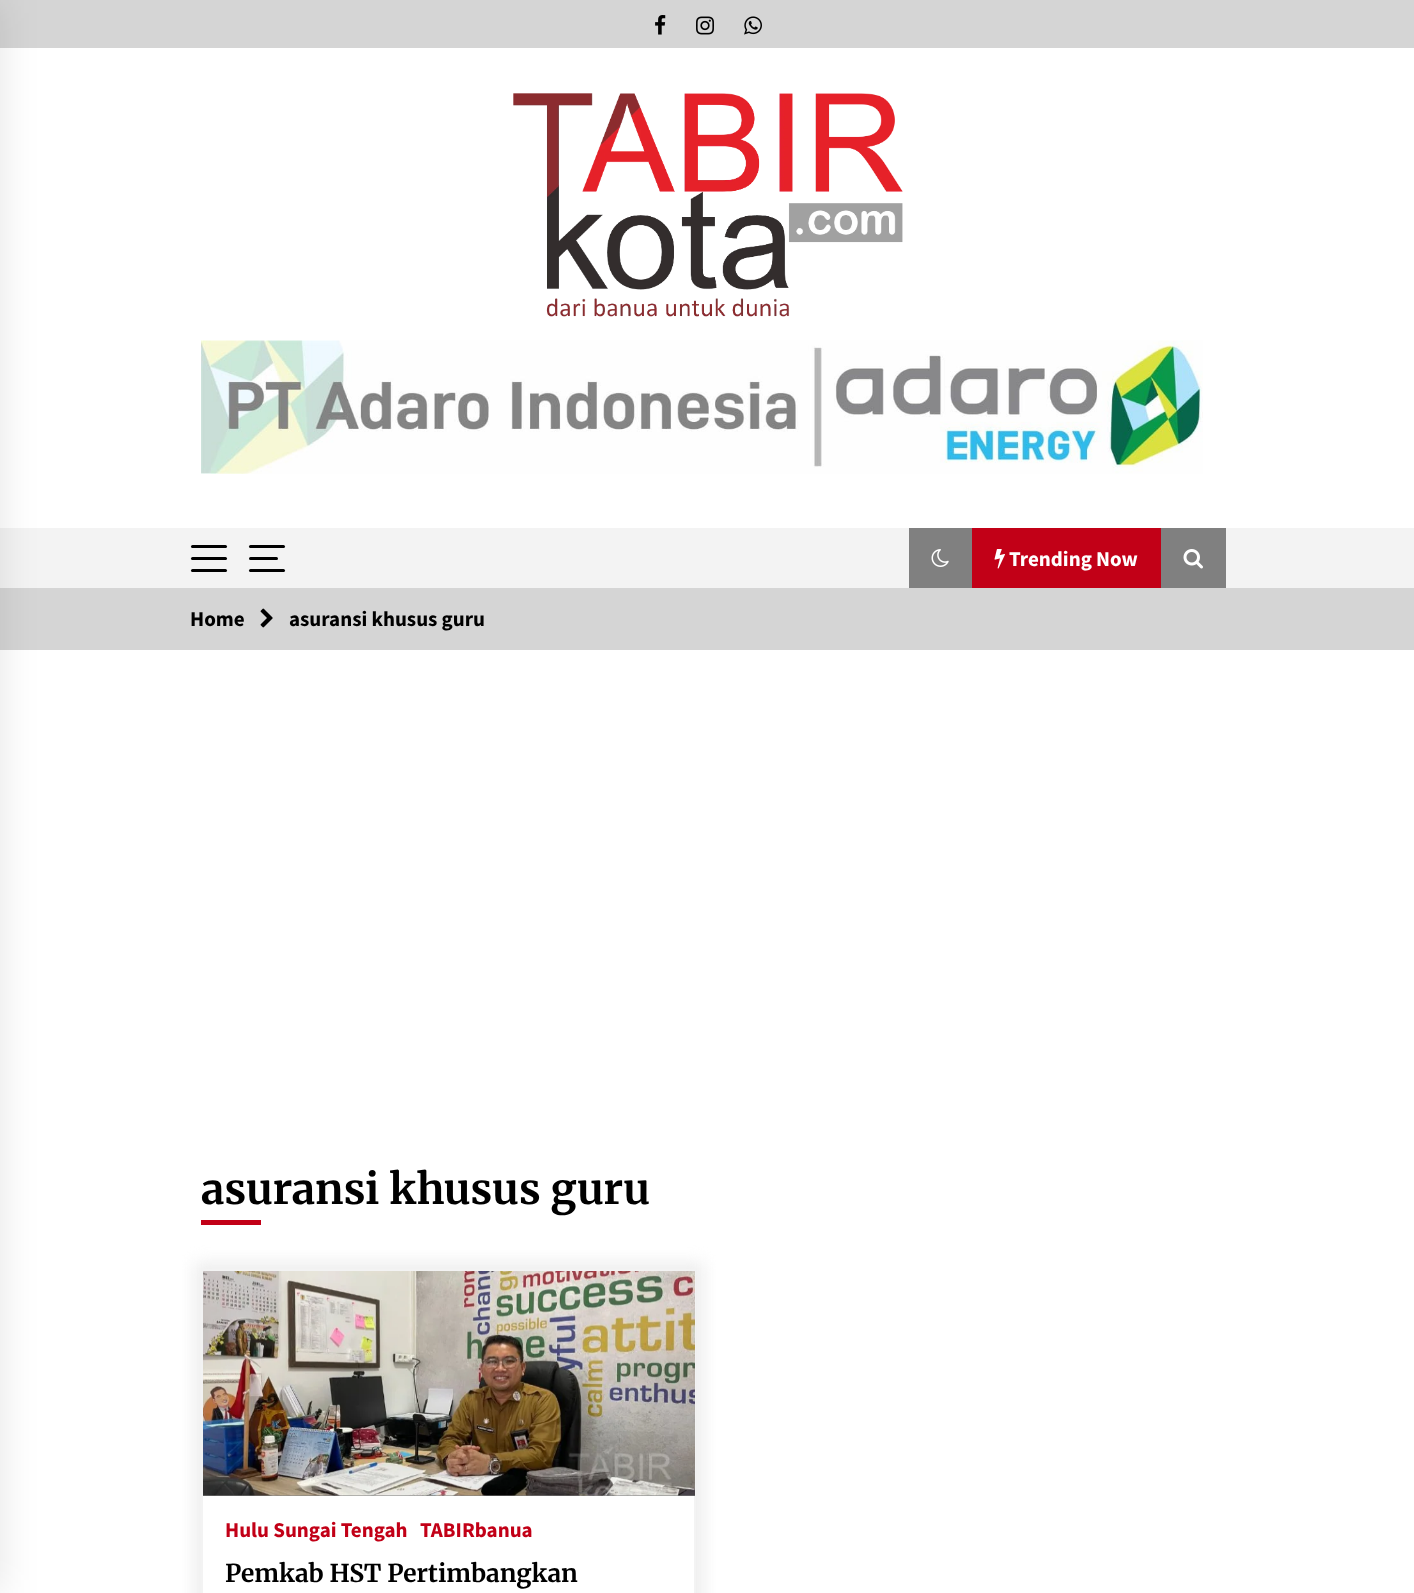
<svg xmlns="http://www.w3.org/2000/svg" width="1414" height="1593">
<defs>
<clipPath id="clip1"><path d="M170 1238h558v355h-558zm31 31h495v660h-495z" clip-rule="evenodd"/></clipPath>
</defs>
<rect width="100%" height="100%" fill="#fff"/>
<rect width="1414" height="48" fill="#d5d5d5"/>
<rect y="528" width="1414" height="60" fill="#f3f3f3"/>
<rect y="588" width="1414" height="62" fill="#d5d5d5"/>
<rect x="-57" width="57" height="1593" fill="#0000001a" filter="blur(19px)"/>
<image x="655" y="15" width="11" height="20" href="media/1.png"/>
<image x="696" y="16" width="18" height="19" href="media/2.png"/>
<image x="744" y="16" width="18" height="19" href="media/3.png"/>
<image x="513" y="93" width="390" height="224" href="media/4.png"/>
<image x="201" y="340" width="1002" height="134" href="media/5.png"/>
<rect x="191" y="545" width="36" height="3" rx="1.5" fill="#000"/>
<rect x="191" y="569" width="36" height="3" rx="1.5" fill="#000"/>
<rect x="191" y="557" width="36" height="3" rx="1.5" fill="#000"/>
<rect x="249" y="545" width="36" height="3" rx="1.5" fill="#000"/>
<rect x="249" y="569" width="36" height="3" rx="1.5" fill="#000"/>
<rect x="249" y="557" width="29" height="3" rx="1.5" fill="#000"/>
<rect x="909" y="528" width="63" height="60" fill="#808080"/>
<image x="931" y="549" width="18" height="18" href="media/6.png"/>
<rect x="972" y="528" width="189" height="60" fill="#c20017"/>
<image x="994" y="549" width="11" height="20" href="media/7.png"/>
<text x="1009" y="566" style="font-family:Source Sans Pro;font-size:21px;font-weight:bold;fill:#fff">Trending Now</text>
<rect x="1161" y="528" width="65" height="60" fill="#808080"/>
<image x="1183" y="549" width="20" height="20" href="media/8.png"/>
<text x="190" y="626" style="font-family:Source Sans Pro;font-size:21px;font-weight:bold;fill:#000">Home</text>
<image x="260" y="608" width="13" height="20" href="media/9.png"/>
<text x="289" y="626" style="font-family:Source Sans Pro;font-size:21px;font-weight:bold;fill:#000">asuransi khusus guru</text>
<text x="201" y="1204" style="font-family:Merriweather;font-size:42px;font-weight:bold;fill:#000">asuransi khusus guru</text>
<rect x="201" y="1220" width="60" height="5" fill="#c20017"/>
<g clip-path="url(#clip1)">
<rect x="194" y="1262" width="510" height="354" fill="#eee" filter="blur(7.5px)"/>
</g>
<rect x="202" y="1270" width="493" height="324" fill="none" stroke="#f3f3f3" stroke-width="2"/>
<rect x="203" y="1495" width="492" height="1" fill="#808080"/>
<image x="203" y="1271" width="492" height="225" href="media/10.png"/>
<text x="225" y="1537" style="font-family:Source Sans Pro;font-size:21px;font-weight:bold;fill:#c20017">Hulu Sungai Tengah</text>
<text x="420" y="1537" style="font-family:Source Sans Pro;font-size:21px;font-weight:bold;fill:#c20017">TABIRbanua</text>
<text x="225" y="1582" style="font-family:Merriweather;font-size:24.6px;font-weight:bold;fill:#000">Pemkab HST Pertimbangkan</text>
</svg>
